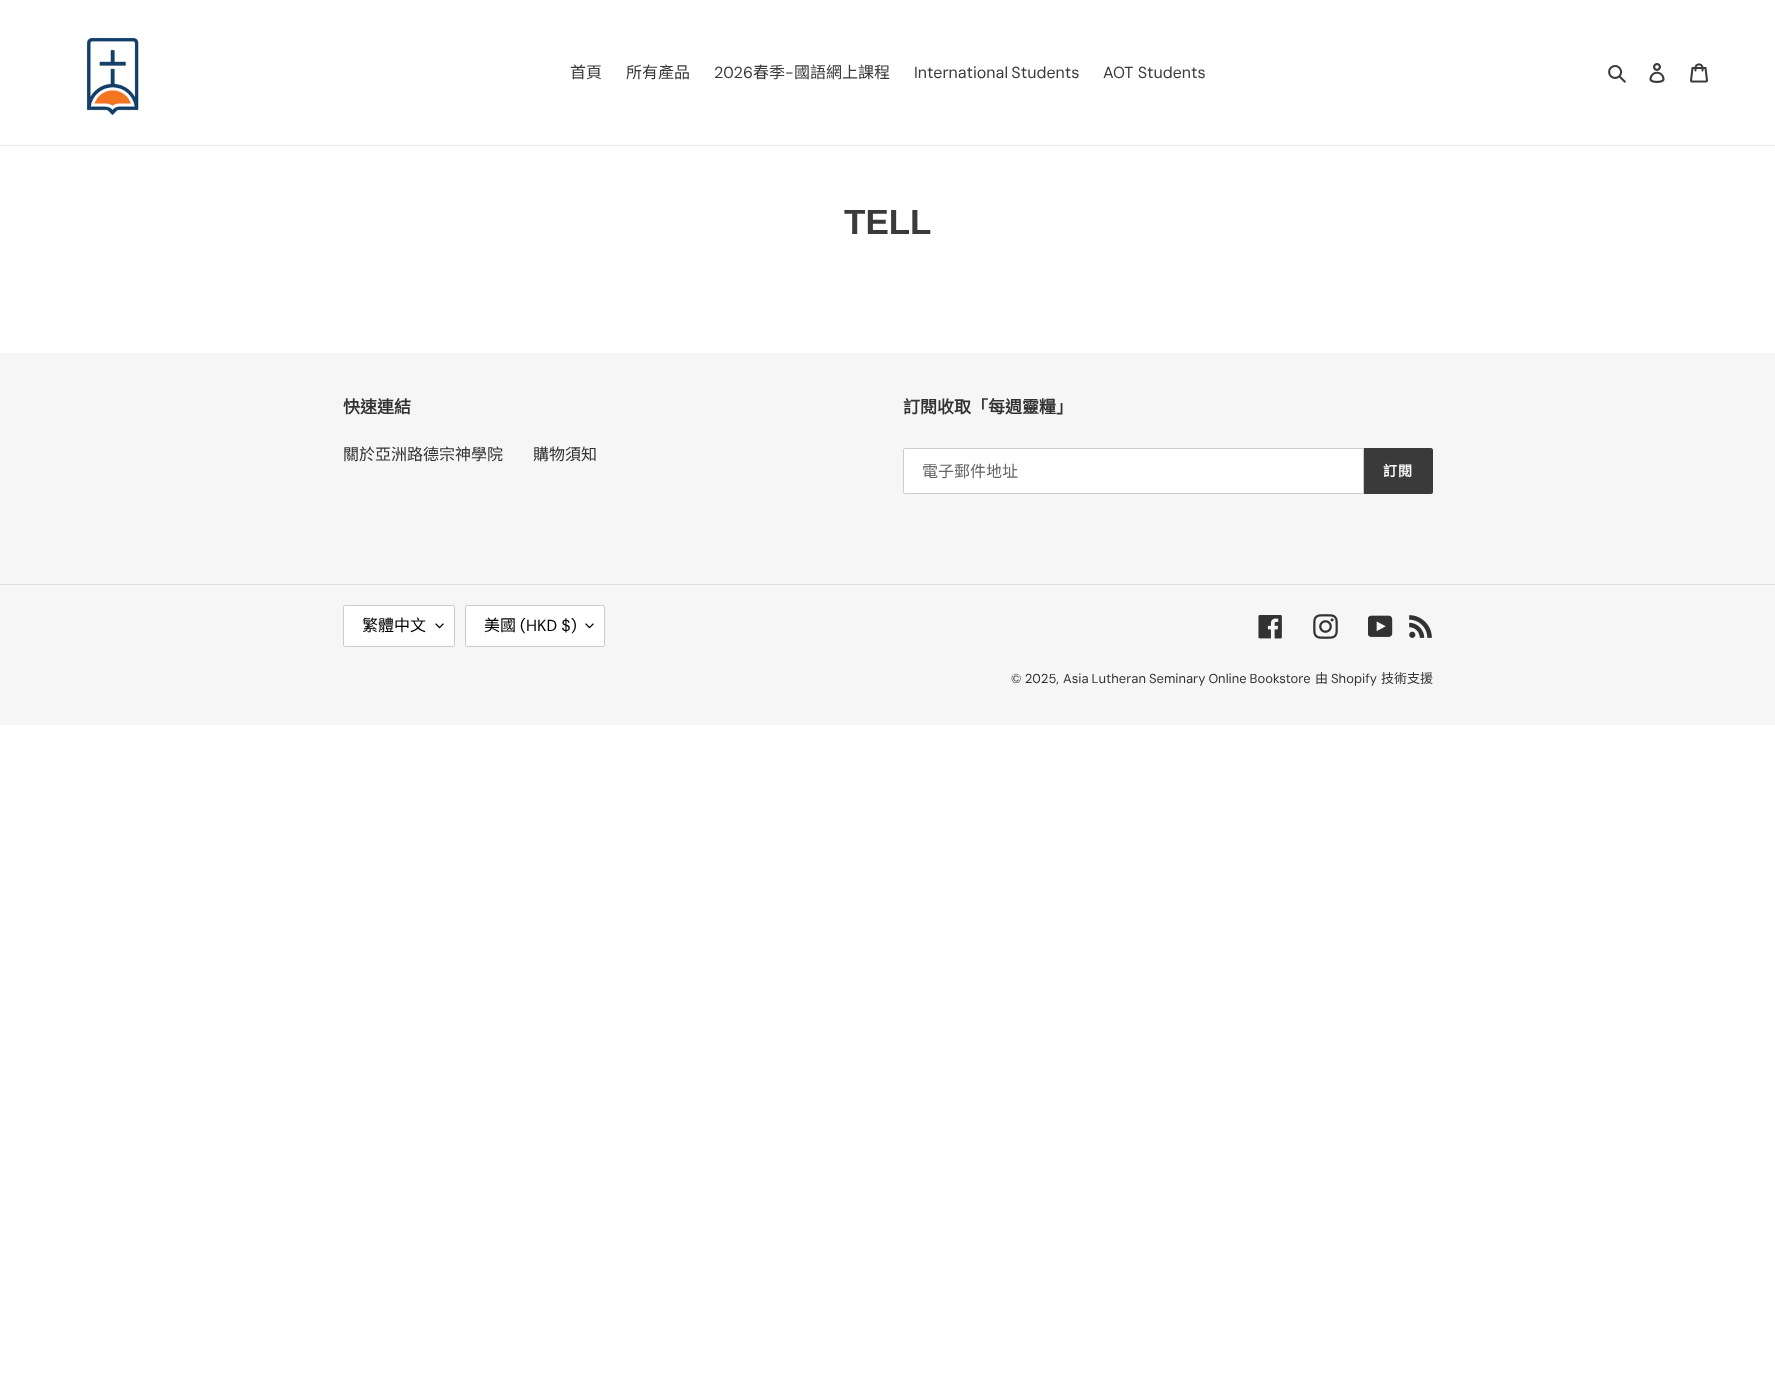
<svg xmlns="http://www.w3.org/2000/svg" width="1775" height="1384">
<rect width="100%" height="100%" fill="#fff"/>
<rect y="145" width="1775" height="1" fill="#ebebeb"/>
<image x="86" y="37" width="56" height="80" href="media/1.png"/>
<text x="570" y="78" style="font-family:Noto Sans CJK TC;font-size:16px;fill:#3a3a3a">首頁</text>
<text x="626" y="78" style="font-family:Noto Sans CJK TC;font-size:16px;fill:#3a3a3a">所有產品</text>
<text x="714" y="78" style="font-family:DM Sans;font-size:16px;fill:#3a3a3a">2026</text>
<text x="753" y="78" style="font-family:Noto Sans CJK TC;font-size:16px;fill:#3a3a3a">春季</text>
<text x="785" y="78" style="font-family:DM Sans;font-size:16px;fill:#3a3a3a">-</text>
<text x="794" y="78" style="font-family:Noto Sans CJK TC;font-size:16px;fill:#3a3a3a">國語網上課程</text>
<text x="914" y="78" word-spacing="-1" style="font-family:DM Sans;font-size:16px;fill:#3a3a3a">International Students</text>
<text x="1103" y="78" style="font-family:DM Sans;font-size:16px;fill:#3a3a3a">AOT Students</text>
<image x="1608" y="65" width="18" height="18" href="media/2.png"/>
<image x="1649" y="63" width="16" height="20" href="media/3.png"/>
<image x="1690" y="63" width="18" height="20" href="media/4.png"/>
<text x="844" y="234" style="font-family:Liberation Sans;font-size:35px;font-weight:bold;fill:#3a3a3a">TELL</text>
<rect y="353" width="1775" height="372" fill="#f6f6f6"/>
<text x="343" y="413" style="font-family:Noto Sans CJK TC;font-size:17px;font-weight:bold;fill:#333232">快速連結</text>
<text x="343" y="460" style="font-family:Noto Sans CJK TC;font-size:16px;fill:#333232">關於亞洲路德宗神學院</text>
<text x="533" y="460" style="font-family:Noto Sans CJK TC;font-size:16px;fill:#333232">購物須知</text>
<text x="903" y="413" style="font-family:Noto Sans CJK TC;font-size:17px;font-weight:bold;fill:#333232">訂閱收取「每週靈糧」</text>
<path d="M905 448.5h458.5v45h-458.5c-1 0-1.5-.5-1.5-1.5v-42c0-1 .5-1.5 1.5-1.5z" fill="#fff" stroke="#ccc"/>
<text x="922" y="477" style="font-family:Noto Sans CJK TC;font-size:16px;fill:#666">電子郵件地址</text>
<path d="M1364 448h67c1 0 2 1 2 2v42c0 1-1 2-2 2h-67z" fill="#3a3a3a"/>
<text x="1383" y="476" style="font-family:Noto Sans CJK TC;font-size:14px;font-weight:bold;letter-spacing:1px;fill:#fff">訂閱</text>
<rect y="584" width="1775" height="1" fill="#ddd"/>
<rect x="343" y="605" width="112" height="42" rx="2" fill="#fff"/>
<image x="435" y="623" width="9" height="6" href="media/5.png"/>
<rect x="343.5" y="605.5" width="111" height="41" rx="1.5" fill="none" stroke="#ccc"/>
<text x="362" y="631" style="font-family:Noto Sans CJK TC;font-size:16px;fill:#000">繁體中文</text>
<rect x="465" y="605" width="140" height="42" rx="2" fill="#fff"/>
<image x="585" y="623" width="9" height="6" href="media/5.png"/>
<rect x="465.5" y="605.5" width="139" height="41" rx="1.5" fill="none" stroke="#ccc"/>
<text x="484" y="631" style="font-family:Noto Sans CJK TC;font-size:16px;fill:#000">美國</text>
<text x="520" y="631" style="font-family:DM Sans;font-size:16px;fill:#000">(HKD $)</text>
<image x="1258" y="615" width="24" height="24" href="media/6.png"/>
<image x="1313" y="614" width="25" height="25" href="media/7.png"/>
<image x="1368" y="615" width="25" height="22" href="media/8.png"/>
<image x="1409" y="615" width="23" height="23" href="media/9.png"/>
<text x="1011" y="683" style="font-family:DM Sans;font-size:13px;fill:#333232">© 2025,</text>
<text x="1063" y="683" word-spacing="-0.5" style="font-family:DM Sans;font-size:13px;fill:#333232">Asia Lutheran Seminary Online Bookstore</text>
<text x="1315" y="683" style="font-family:Noto Sans CJK TC;font-size:13px;fill:#333232">由</text>
<text x="1331" y="683" style="font-family:DM Sans;font-size:13px;fill:#333232">Shopify</text>
<text x="1381" y="683" style="font-family:Noto Sans CJK TC;font-size:13px;fill:#333232">技術支援</text>
</svg>
